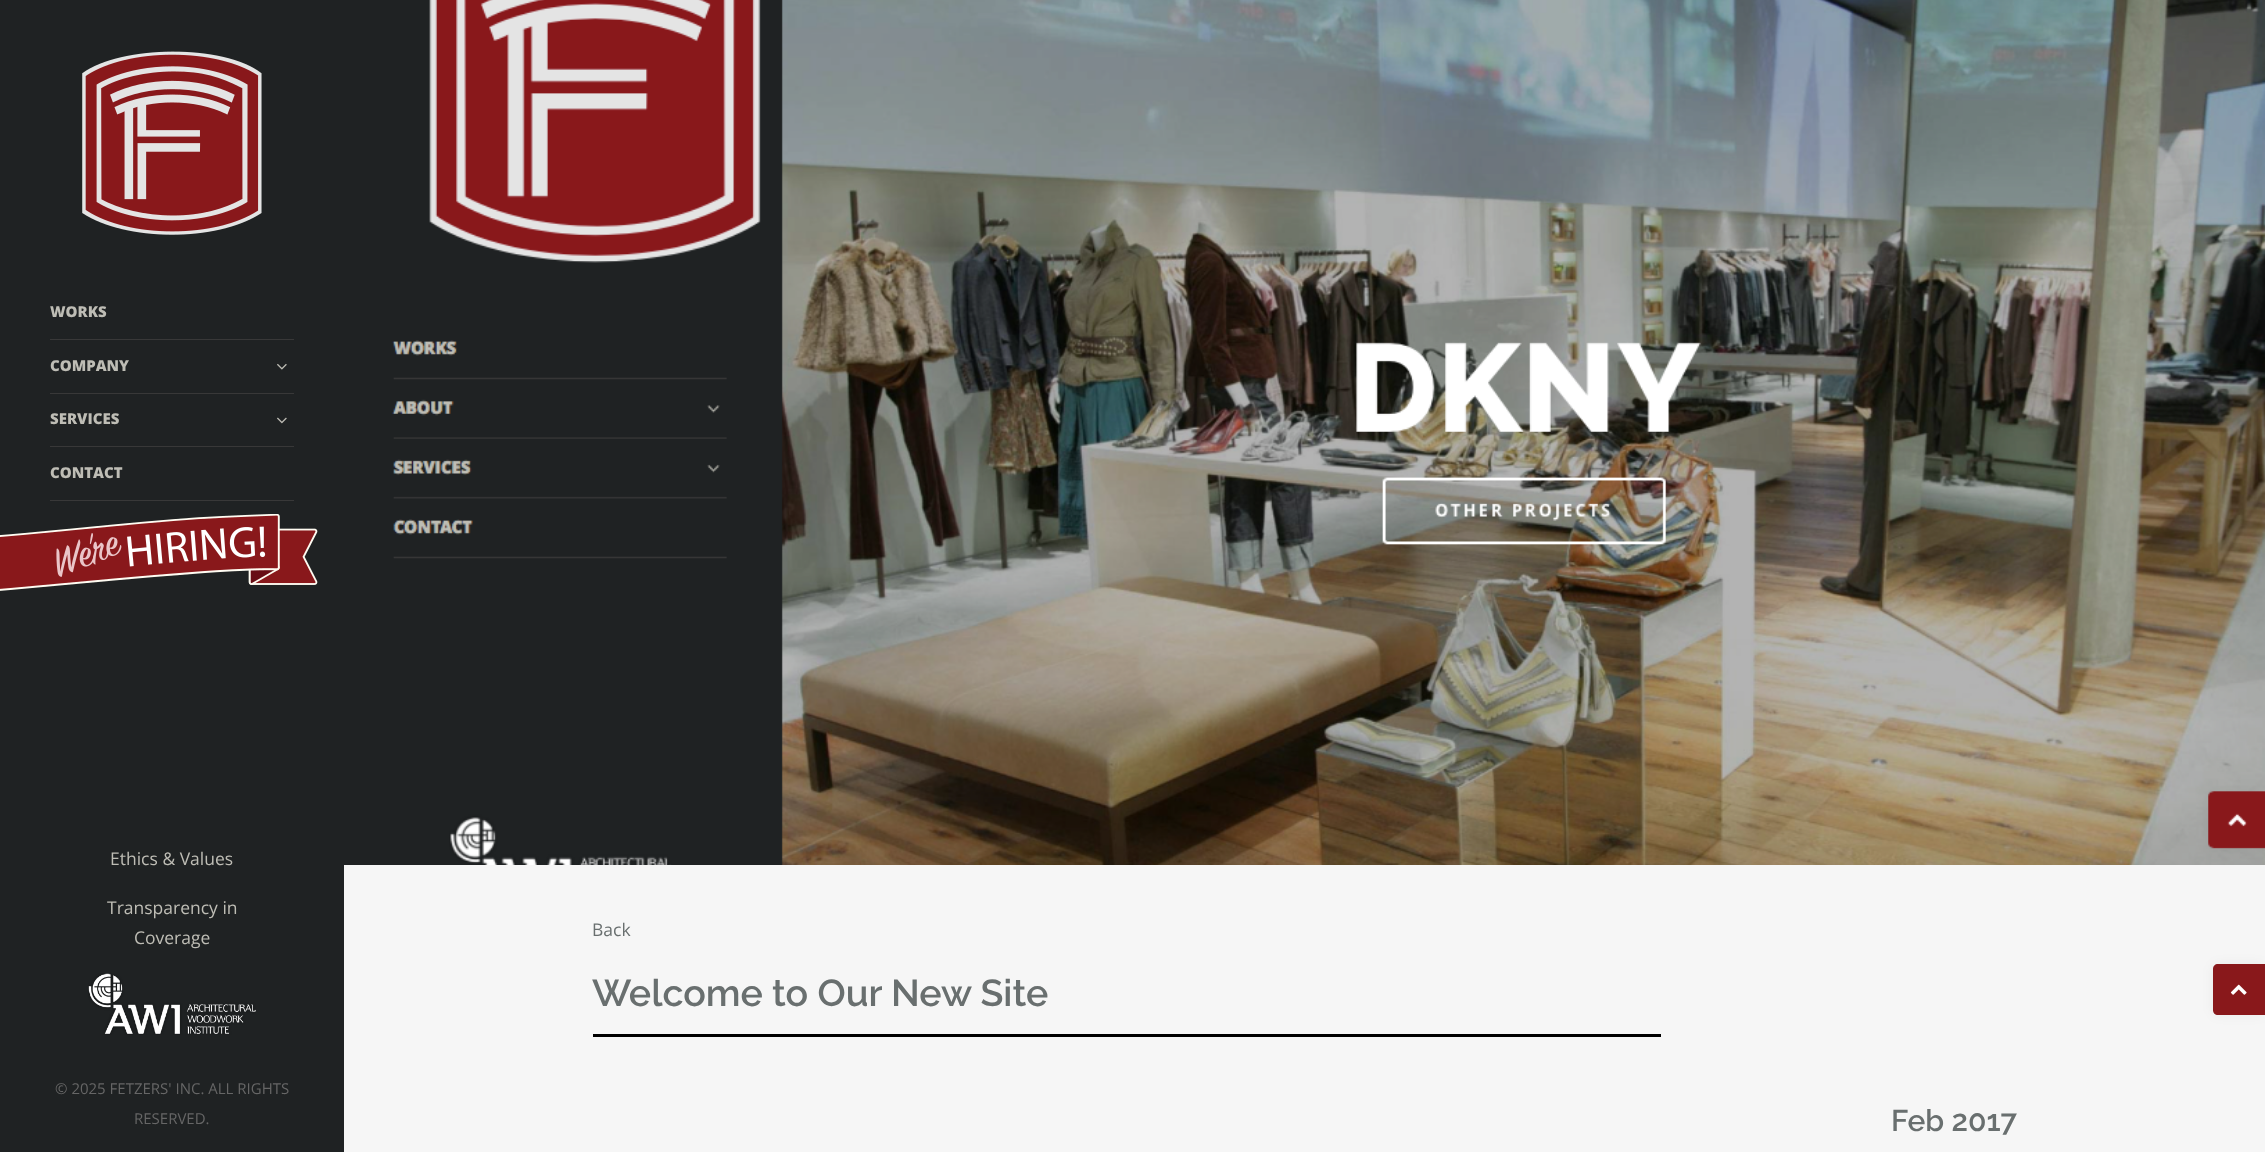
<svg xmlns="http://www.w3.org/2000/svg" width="2265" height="1152">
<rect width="100%" height="100%" fill="#fff"/>
<rect width="344" height="1152" fill="#1f2223"/>
<image x="82" y="51" width="180" height="184" href="media/1.png"/>
<rect x="50" y="339" width="244" height="1" fill="#383838"/>
<text x="50" y="317" style="font-family:Open Sans;font-size:15px;font-weight:800;fill:#bebdb5">WORKS</text>
<rect x="50" y="393" width="244" height="1" fill="#383838"/>
<text x="50" y="371" style="font-family:Open Sans;font-size:15px;font-weight:800;fill:#bebdb5">COMPANY</text>
<image x="277" y="363" width="10" height="7" href="media/2.png"/>
<rect x="50" y="446" width="244" height="1" fill="#383838"/>
<text x="50" y="424" style="font-family:Open Sans;font-size:15px;font-weight:800;fill:#bebdb5">SERVICES</text>
<image x="277" y="417" width="10" height="7" href="media/3.png"/>
<rect x="50" y="500" width="244" height="1" fill="#383838"/>
<text x="50" y="478" style="font-family:Open Sans;font-size:15px;font-weight:800;fill:#bebdb5">CONTACT</text>
<image x="0" y="514" width="318" height="77" href="media/4.png"/>
<text x="110" y="865" style="font-family:Open Sans;font-size:17.5px;fill:#bebdb5">Ethics &amp; Values</text>
<text x="107" y="914" style="font-family:Open Sans;font-size:17.5px;fill:#bebdb5">Transparency in</text>
<text x="134" y="944" style="font-family:Open Sans;font-size:17.5px;fill:#bebdb5">Coverage</text>
<image x="88" y="973" width="168" height="62" href="media/5.png"/>
<text x="55" y="1094" style="font-family:Open Sans;font-size:15px;fill:#666">© 2025 FETZERS' INC. ALL RIGHTS</text>
<text x="134" y="1124" style="font-family:Open Sans;font-size:15px;fill:#666">RESERVED.</text>
<image x="344" y="0" width="1921" height="865" href="media/6.png"/>
<rect x="344" y="865" width="1921" height="287" fill="#f6f6f6"/>
<text x="592" y="936" style="font-family:Open Sans;font-size:17.5px;fill:#696f6f">Back</text>
<text x="592" y="1006" style="font-family:Raleway;font-size:37.5px;font-weight:600;fill:#696f6f">Welcome to Our New Site</text>
<rect x="593" y="1034" width="1068" height="3" fill="#000"/>
<text x="1891" y="1131" style="font-family:Raleway;font-size:30px;font-weight:600;fill:#696f6f">Feb 2017</text>
<rect x="2213" y="964" width="52" height="51" rx="5" fill="#0000000d" filter="blur(6px)"/>
<path d="M2218 964h47v51h-47c-3 0-5-2-5-5v-41c0-3 2-5 5-5z" fill="#89181b"/>
<image x="2230" y="984" width="17" height="11" href="media/7.png"/>
</svg>
